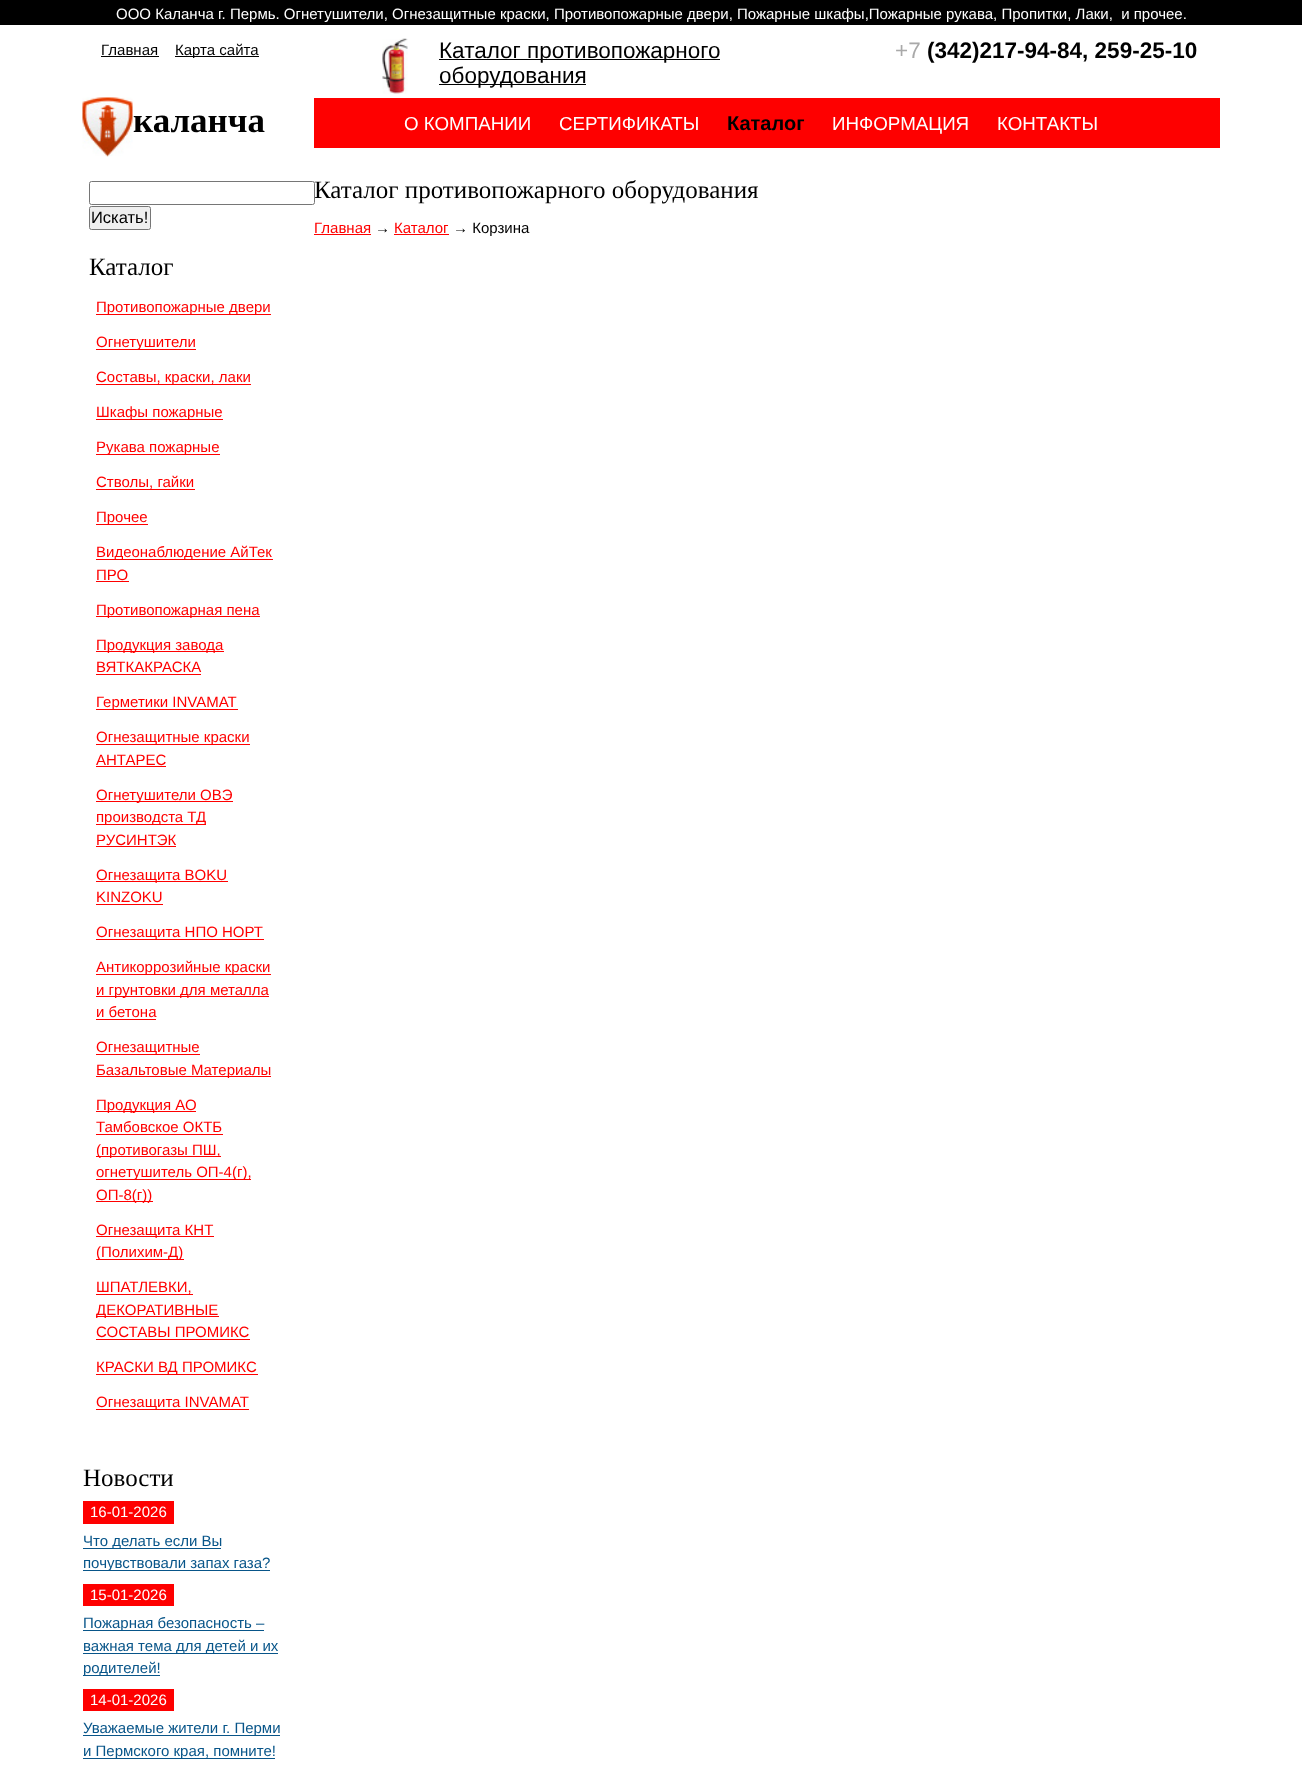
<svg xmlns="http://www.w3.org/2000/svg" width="1302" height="1765">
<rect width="100%" height="100%" fill="#fff"/>
<rect width="1302" height="25" fill="#000"/>
<text x="116" y="19" style="font-family:Liberation Sans;font-size:15px;fill:#fff" xml:space="preserve">ООО Каланча г. Пермь. Огнетушители, Огнезащитные краски, Противопожарные двери, Пожарные шкафы,Пожарные рукава, Пропитки, Лаки,  и прочее.</text>
<text x="101" y="55" style="font-family:Liberation Sans;font-size:15px;fill:#000">Главная</text>
<rect x="101" y="56" width="58" height="1" fill="#000"/>
<rect x="175" y="56" width="84" height="1" fill="#000"/>
<text x="175" y="55" style="font-family:Liberation Sans;font-size:15px;fill:#000">Карта сайта</text>
<image x="382" y="38" width="26" height="56" href="media/1.png"/>
<rect x="439" y="59" width="281" height="1" fill="#000"/>
<text x="439" y="58" style="font-family:Liberation Sans;font-size:22.5px;fill:#000">Каталог противопожарного</text>
<rect x="439" y="84" width="147" height="1" fill="#000"/>
<text x="439" y="83" style="font-family:Liberation Sans;font-size:22.5px;fill:#000">оборудования</text>
<text x="895" y="58" style="font-family:Liberation Sans;font-size:22.5px;fill:#a9a9a9">+7</text>
<text x="927" y="58" style="font-family:Liberation Sans;font-size:22.5px;font-weight:bold;fill:#000">(342)217-94-84, 259-25-10</text>
<image x="82" y="97" width="51" height="60" href="media/2.png"/>
<text x="133" y="132" style="font-family:Liberation Serif;font-size:35px;font-weight:bold;fill:#000">каланча</text>
<rect x="314" y="98" width="906" height="50" fill="#fe0000"/>
<text x="404" y="130" style="font-family:Liberation Sans;font-size:18.75px;fill:#fff">О КОМПАНИИ</text>
<text x="559" y="130" style="font-family:Liberation Sans;font-size:18.75px;fill:#fff">СЕРТИФИКАТЫ</text>
<text x="727" y="130" style="font-family:Liberation Sans;font-size:20px;font-weight:bold;fill:#000">Каталог</text>
<text x="832" y="130" style="font-family:Liberation Sans;font-size:18.75px;fill:#fff">ИНФОРМАЦИЯ</text>
<text x="997" y="130" style="font-family:Liberation Sans;font-size:18.75px;fill:#fff">КОНТАКТЫ</text>
<text x="314" y="198" style="font-family:Liberation Serif;font-size:25px;fill:#000">Каталог противопожарного оборудования</text>
<rect x="89.5" y="181.5" width="225" height="23" rx="2" fill="#fff" stroke="#767676"/>
<rect x="89.5" y="206.5" width="61" height="23" rx="2" fill="#efefef" stroke="#767676"/>
<text x="91" y="223" style="font-family:Liberation Sans;font-size:16.5px;fill:#000">Искать!</text>
<text x="89" y="275" style="font-family:Liberation Serif;font-size:25px;fill:#000">Каталог</text>
<rect x="96" y="314" width="175" height="1" fill="#fe0000"/>
<text x="96" y="312" style="font-family:Liberation Sans;font-size:15px;fill:#fe0000">Противопожарные двери</text>
<rect x="96" y="349" width="100" height="1" fill="#fe0000"/>
<text x="96" y="347" style="font-family:Liberation Sans;font-size:15px;fill:#fe0000">Огнетушители</text>
<rect x="96" y="384" width="155" height="1" fill="#fe0000"/>
<text x="96" y="382" style="font-family:Liberation Sans;font-size:15px;fill:#fe0000">Составы, краски, лаки</text>
<rect x="96" y="419" width="127" height="1" fill="#fe0000"/>
<text x="96" y="417" style="font-family:Liberation Sans;font-size:15px;fill:#fe0000">Шкафы пожарные</text>
<rect x="96" y="454" width="124" height="1" fill="#fe0000"/>
<text x="96" y="452" style="font-family:Liberation Sans;font-size:15px;fill:#fe0000">Рукава пожарные</text>
<text x="96" y="487" style="font-family:Liberation Sans;font-size:15px;fill:#fe0000">Стволы, гайки</text>
<rect x="96" y="489" width="99" height="1" fill="#fe0000"/>
<rect x="96" y="524" width="52" height="1" fill="#fe0000"/>
<text x="96" y="522" style="font-family:Liberation Sans;font-size:15px;fill:#fe0000">Прочее</text>
<rect x="96" y="559" width="177" height="1" fill="#fe0000"/>
<text x="96" y="557" style="font-family:Liberation Sans;font-size:15px;fill:#fe0000">Видеонаблюдение АйТек</text>
<text x="96" y="580" style="font-family:Liberation Sans;font-size:15px;fill:#fe0000">ПРО</text>
<rect x="96" y="581" width="33" height="1" fill="#fe0000"/>
<rect x="96" y="616" width="164" height="1" fill="#fe0000"/>
<text x="96" y="615" style="font-family:Liberation Sans;font-size:15px;fill:#fe0000">Противопожарная пена</text>
<rect x="96" y="651" width="128" height="1" fill="#fe0000"/>
<text x="96" y="650" style="font-family:Liberation Sans;font-size:15px;fill:#fe0000">Продукция завода</text>
<text x="96" y="672" style="font-family:Liberation Sans;font-size:15px;fill:#fe0000">ВЯТКАКРАСКА</text>
<rect x="96" y="674" width="105" height="1" fill="#fe0000"/>
<rect x="96" y="709" width="142" height="1" fill="#fe0000"/>
<text x="96" y="707" style="font-family:Liberation Sans;font-size:15px;fill:#fe0000">Герметики INVAMAT</text>
<rect x="96" y="744" width="154" height="1" fill="#fe0000"/>
<text x="96" y="742" style="font-family:Liberation Sans;font-size:15px;fill:#fe0000">Огнезащитные краски</text>
<text x="96" y="765" style="font-family:Liberation Sans;font-size:15px;fill:#fe0000">АНТАРЕС</text>
<rect x="96" y="766" width="70" height="1" fill="#fe0000"/>
<rect x="96" y="801" width="137" height="1" fill="#fe0000"/>
<text x="96" y="800" style="font-family:Liberation Sans;font-size:15px;fill:#fe0000">Огнетушители ОВЭ</text>
<rect x="96" y="824" width="110" height="1" fill="#fe0000"/>
<text x="96" y="822" style="font-family:Liberation Sans;font-size:15px;fill:#fe0000">производста ТД</text>
<text x="96" y="845" style="font-family:Liberation Sans;font-size:15px;fill:#fe0000">РУСИНТЭК</text>
<rect x="96" y="846" width="80" height="1" fill="#fe0000"/>
<rect x="96" y="881" width="132" height="1" fill="#fe0000"/>
<text x="96" y="880" style="font-family:Liberation Sans;font-size:15px;fill:#fe0000">Огнезащита BOKU</text>
<text x="96" y="902" style="font-family:Liberation Sans;font-size:15px;fill:#fe0000">KINZOKU</text>
<rect x="96" y="904" width="67" height="1" fill="#fe0000"/>
<rect x="96" y="939" width="168" height="1" fill="#fe0000"/>
<text x="96" y="937" style="font-family:Liberation Sans;font-size:15px;fill:#fe0000">Огнезащита НПО НОРТ</text>
<rect x="96" y="974" width="175" height="1" fill="#fe0000"/>
<text x="96" y="972" style="font-family:Liberation Sans;font-size:15px;fill:#fe0000">Антикоррозийные краски</text>
<rect x="96" y="996" width="173" height="1" fill="#fe0000"/>
<text x="96" y="995" style="font-family:Liberation Sans;font-size:15px;fill:#fe0000">и грунтовки для металла</text>
<text x="96" y="1017" style="font-family:Liberation Sans;font-size:15px;fill:#fe0000">и бетона</text>
<rect x="96" y="1019" width="60" height="1" fill="#fe0000"/>
<rect x="96" y="1054" width="104" height="1" fill="#fe0000"/>
<text x="96" y="1052" style="font-family:Liberation Sans;font-size:15px;fill:#fe0000">Огнезащитные</text>
<rect x="96" y="1076" width="175" height="1" fill="#fe0000"/>
<text x="96" y="1075" style="font-family:Liberation Sans;font-size:15px;fill:#fe0000">Базальтовые Материалы</text>
<rect x="96" y="1111" width="100" height="1" fill="#fe0000"/>
<text x="96" y="1110" style="font-family:Liberation Sans;font-size:15px;fill:#fe0000">Продукция АО</text>
<text x="96" y="1132" style="font-family:Liberation Sans;font-size:15px;fill:#fe0000">Тамбовское ОКТБ</text>
<rect x="96" y="1134" width="127" height="1" fill="#fe0000"/>
<rect x="96" y="1156" width="125" height="1" fill="#fe0000"/>
<text x="96" y="1155" style="font-family:Liberation Sans;font-size:15px;fill:#fe0000">(противогазы ПШ,</text>
<rect x="96" y="1179" width="155" height="1" fill="#fe0000"/>
<text x="96" y="1177" style="font-family:Liberation Sans;font-size:15px;fill:#fe0000">огнетушитель ОП-4(г),</text>
<rect x="96" y="1201" width="57" height="1" fill="#fe0000"/>
<text x="96" y="1200" style="font-family:Liberation Sans;font-size:15px;fill:#fe0000">ОП-8(г))</text>
<rect x="96" y="1236" width="118" height="1" fill="#fe0000"/>
<text x="96" y="1235" style="font-family:Liberation Sans;font-size:15px;fill:#fe0000">Огнезащита КНТ</text>
<rect x="96" y="1259" width="88" height="1" fill="#fe0000"/>
<text x="96" y="1257" style="font-family:Liberation Sans;font-size:15px;fill:#fe0000">(Полихим-Д)</text>
<text x="96" y="1292" style="font-family:Liberation Sans;font-size:15px;fill:#fe0000">ШПАТЛЕВКИ,</text>
<rect x="96" y="1294" width="97" height="1" fill="#fe0000"/>
<rect x="96" y="1316" width="123" height="1" fill="#fe0000"/>
<text x="96" y="1315" style="font-family:Liberation Sans;font-size:15px;fill:#fe0000">ДЕКОРАТИВНЫЕ</text>
<text x="96" y="1337" style="font-family:Liberation Sans;font-size:15px;fill:#fe0000">СОСТАВЫ ПРОМИКС</text>
<rect x="96" y="1339" width="154" height="1" fill="#fe0000"/>
<rect x="96" y="1374" width="162" height="1" fill="#fe0000"/>
<text x="96" y="1372" style="font-family:Liberation Sans;font-size:15px;fill:#fe0000">КРАСКИ ВД ПРОМИКС</text>
<rect x="96" y="1409" width="153" height="1" fill="#fe0000"/>
<text x="96" y="1407" style="font-family:Liberation Sans;font-size:15px;fill:#fe0000">Огнезащита INVAMAT</text>
<text x="83" y="1486" style="font-family:Liberation Serif;font-size:25px;fill:#000">Новости</text>
<rect x="83" y="1501" width="91" height="23" fill="#fe0000"/>
<text x="90" y="1517" style="font-family:Liberation Sans;font-size:15px;fill:#fff">16-01-2026</text>
<rect x="83" y="1548" width="138" height="1" fill="#085589"/>
<text x="83" y="1546" style="font-family:Liberation Sans;font-size:15px;fill:#085589">Что делать если Вы</text>
<rect x="83" y="1570" width="187" height="1" fill="#085589"/>
<text x="83" y="1568" style="font-family:Liberation Sans;font-size:15px;fill:#085589">почувствовали запах газа?</text>
<rect x="83" y="1584" width="91" height="22" fill="#fe0000"/>
<text x="90" y="1600" style="font-family:Liberation Sans;font-size:15px;fill:#fff">15-01-2026</text>
<rect x="83" y="1630" width="181" height="1" fill="#085589"/>
<text x="83" y="1628" style="font-family:Liberation Sans;font-size:15px;fill:#085589">Пожарная безопасность –</text>
<rect x="83" y="1653" width="195" height="1" fill="#085589"/>
<text x="83" y="1651" style="font-family:Liberation Sans;font-size:15px;fill:#085589">важная тема для детей и их</text>
<rect x="83" y="1675" width="77" height="1" fill="#085589"/>
<text x="83" y="1673" style="font-family:Liberation Sans;font-size:15px;fill:#085589">родителей!</text>
<rect x="83" y="1689" width="91" height="22" fill="#fe0000"/>
<text x="90" y="1705" style="font-family:Liberation Sans;font-size:15px;fill:#fff">14-01-2026</text>
<rect x="83" y="1735" width="197" height="1" fill="#085589"/>
<text x="83" y="1733" style="font-family:Liberation Sans;font-size:15px;fill:#085589">Уважаемые жители г. Перми</text>
<rect x="83" y="1758" width="192" height="1" fill="#085589"/>
<text x="83" y="1756" style="font-family:Liberation Sans;font-size:15px;fill:#085589">и Пермского края, помните!</text>
<text x="314" y="233" style="font-family:Liberation Sans;font-size:15px;fill:#fe0000">Главная</text>
<rect x="314" y="234" width="57" height="1" fill="#fe0000"/>
<text x="375" y="233" style="font-family:Liberation Sans;font-size:15px;fill:#000">→</text>
<text x="394" y="233" style="font-family:Liberation Sans;font-size:15px;fill:#fe0000">Каталог</text>
<rect x="394" y="234" width="55" height="1" fill="#fe0000"/>
<text x="453" y="233" style="font-family:Liberation Sans;font-size:15px;fill:#000">→ Корзина</text>
</svg>
